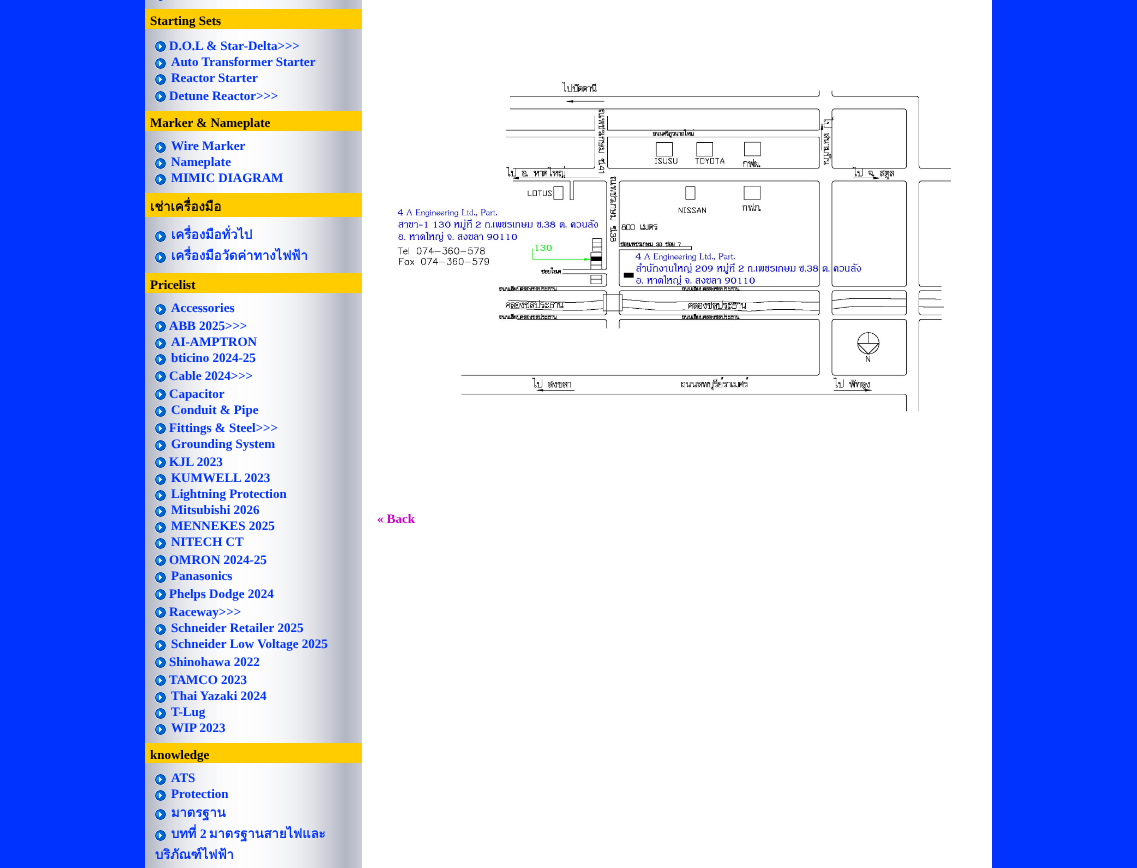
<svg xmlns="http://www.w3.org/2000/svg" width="1137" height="868">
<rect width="100%" height="100%" fill="#03f"/>
<image x="145" y="0" width="217" height="868" href="media/1.png"/>
<image x="157" y="0" width="7" height="1" href="media/2.png"/>
<rect x="145" y="9" width="217" height="20" fill="#fc0"/>
<text x="150" y="25" style="font-family:Liberation Serif;font-size:13px;font-weight:bold;fill:#000">Starting Sets</text>
<image x="155" y="41" width="11" height="11" href="media/3.png"/>
<text x="169" y="50" style="font-family:Liberation Serif;font-size:13px;font-weight:bold;fill:#03f">D.O.L &amp; Star-Delta&gt;&gt;&gt;</text>
<image x="155" y="58" width="11" height="11" href="media/3.png"/>
<text x="171" y="66" style="font-family:Liberation Serif;font-size:13px;font-weight:bold;fill:#03f">Auto Transformer Starter</text>
<image x="155" y="74" width="11" height="11" href="media/3.png"/>
<text x="171" y="82" style="font-family:Liberation Serif;font-size:13px;font-weight:bold;fill:#03f">Reactor Starter</text>
<image x="155" y="91" width="11" height="11" href="media/3.png"/>
<text x="169" y="100" style="font-family:Liberation Serif;font-size:13px;font-weight:bold;fill:#03f">Detune Reactor&gt;&gt;&gt;</text>
<rect x="145" y="111" width="217" height="20" fill="#fc0"/>
<text x="150" y="127" style="font-family:Liberation Serif;font-size:13px;font-weight:bold;fill:#000">Marker &amp; Nameplate</text>
<image x="155" y="142" width="11" height="11" href="media/3.png"/>
<text x="171" y="150" style="font-family:Liberation Serif;font-size:13px;font-weight:bold;fill:#03f">Wire Marker</text>
<image x="155" y="158" width="11" height="11" href="media/3.png"/>
<text x="171" y="166" style="font-family:Liberation Serif;font-size:13px;font-weight:bold;fill:#03f">Nameplate</text>
<image x="155" y="174" width="11" height="11" href="media/3.png"/>
<text x="171" y="182" style="font-family:Liberation Serif;font-size:13px;font-weight:bold;fill:#03f">MIMIC DIAGRAM</text>
<rect x="145" y="193" width="217" height="24" fill="#fc0"/>
<text x="150" y="211" style="font-family:Loma;font-size:13px;font-weight:bold;fill:#000">เช่าเครื่องมือ</text>
<image x="155" y="231" width="11" height="11" href="media/3.png"/>
<text x="171" y="239" style="font-family:Loma;font-size:13px;font-weight:bold;fill:#03f">เครื่องมือทั่วไป</text>
<image x="155" y="252" width="11" height="11" href="media/3.png"/>
<text x="171" y="260" style="font-family:Loma;font-size:13px;font-weight:bold;fill:#03f">เครื่องมือวัดค่าทางไฟฟ้า</text>
<rect x="145" y="273" width="217" height="20" fill="#fc0"/>
<text x="150" y="289" style="font-family:Liberation Serif;font-size:13px;font-weight:bold;fill:#000">Pricelist</text>
<image x="155" y="304" width="11" height="11" href="media/3.png"/>
<text x="171" y="312" style="font-family:Liberation Serif;font-size:13px;font-weight:bold;fill:#03f">Accessories</text>
<image x="155" y="321" width="11" height="11" href="media/3.png"/>
<text x="169" y="330" style="font-family:Liberation Serif;font-size:13px;font-weight:bold;fill:#03f">ABB 2025&gt;&gt;&gt;</text>
<image x="155" y="338" width="11" height="11" href="media/3.png"/>
<text x="171" y="346" style="font-family:Liberation Serif;font-size:13px;font-weight:bold;fill:#03f">AI-AMPTRON</text>
<image x="155" y="354" width="11" height="11" href="media/3.png"/>
<text x="171" y="362" style="font-family:Liberation Serif;font-size:13px;font-weight:bold;fill:#03f">bticino 2024-25</text>
<image x="155" y="371" width="11" height="11" href="media/3.png"/>
<text x="169" y="380" style="font-family:Liberation Serif;font-size:13px;font-weight:bold;fill:#03f">Cable 2024&gt;&gt;&gt;</text>
<image x="155" y="389" width="11" height="11" href="media/3.png"/>
<text x="169" y="398" style="font-family:Liberation Serif;font-size:13px;font-weight:bold;fill:#03f">Capacitor</text>
<image x="155" y="406" width="11" height="11" href="media/3.png"/>
<text x="171" y="414" style="font-family:Liberation Serif;font-size:13px;font-weight:bold;fill:#03f">Conduit &amp; Pipe</text>
<image x="155" y="423" width="11" height="11" href="media/3.png"/>
<text x="169" y="432" style="font-family:Liberation Serif;font-size:13px;font-weight:bold;fill:#03f">Fittings &amp; Steel&gt;&gt;&gt;</text>
<image x="155" y="440" width="11" height="11" href="media/3.png"/>
<text x="171" y="448" style="font-family:Liberation Serif;font-size:13px;font-weight:bold;fill:#03f">Grounding System</text>
<image x="155" y="457" width="11" height="11" href="media/3.png"/>
<text x="169" y="466" style="font-family:Liberation Serif;font-size:13px;font-weight:bold;fill:#03f">KJL 2023</text>
<image x="155" y="474" width="11" height="11" href="media/3.png"/>
<text x="171" y="482" style="font-family:Liberation Serif;font-size:13px;font-weight:bold;fill:#03f">KUMWELL 2023</text>
<image x="155" y="490" width="11" height="11" href="media/3.png"/>
<text x="171" y="498" style="font-family:Liberation Serif;font-size:13px;font-weight:bold;fill:#03f">Lightning Protection</text>
<image x="155" y="506" width="11" height="11" href="media/3.png"/>
<text x="171" y="514" style="font-family:Liberation Serif;font-size:13px;font-weight:bold;fill:#03f">Mitsubishi 2026</text>
<image x="155" y="522" width="11" height="11" href="media/3.png"/>
<text x="171" y="530" style="font-family:Liberation Serif;font-size:13px;font-weight:bold;fill:#03f">MENNEKES 2025</text>
<image x="155" y="538" width="11" height="11" href="media/3.png"/>
<text x="171" y="546" style="font-family:Liberation Serif;font-size:13px;font-weight:bold;fill:#03f">NITECH CT</text>
<image x="155" y="555" width="11" height="11" href="media/3.png"/>
<text x="169" y="564" style="font-family:Liberation Serif;font-size:13px;font-weight:bold;fill:#03f">OMRON 2024-25</text>
<image x="155" y="572" width="11" height="11" href="media/3.png"/>
<text x="171" y="580" style="font-family:Liberation Serif;font-size:13px;font-weight:bold;fill:#03f">Panasonics</text>
<image x="155" y="589" width="11" height="11" href="media/3.png"/>
<text x="169" y="598" style="font-family:Liberation Serif;font-size:13px;font-weight:bold;fill:#03f">Phelps Dodge 2024</text>
<image x="155" y="607" width="11" height="11" href="media/3.png"/>
<text x="169" y="616" style="font-family:Liberation Serif;font-size:13px;font-weight:bold;fill:#03f">Raceway&gt;&gt;&gt;</text>
<image x="155" y="624" width="11" height="11" href="media/3.png"/>
<text x="171" y="632" style="font-family:Liberation Serif;font-size:13px;font-weight:bold;fill:#03f">Schneider Retailer 2025</text>
<image x="155" y="640" width="11" height="11" href="media/3.png"/>
<text x="171" y="648" style="font-family:Liberation Serif;font-size:13px;font-weight:bold;fill:#03f">Schneider Low Voltage 2025</text>
<image x="155" y="657" width="11" height="11" href="media/3.png"/>
<text x="169" y="666" style="font-family:Liberation Serif;font-size:13px;font-weight:bold;fill:#03f">Shinohawa 2022</text>
<image x="155" y="675" width="11" height="11" href="media/3.png"/>
<text x="169" y="684" style="font-family:Liberation Serif;font-size:13px;font-weight:bold;fill:#03f">TAMCO 2023</text>
<image x="155" y="692" width="11" height="11" href="media/3.png"/>
<text x="171" y="700" style="font-family:Liberation Serif;font-size:13px;font-weight:bold;fill:#03f">Thai Yazaki 2024</text>
<image x="155" y="708" width="11" height="11" href="media/3.png"/>
<text x="171" y="716" style="font-family:Liberation Serif;font-size:13px;font-weight:bold;fill:#03f">T-Lug</text>
<image x="155" y="724" width="11" height="11" href="media/3.png"/>
<text x="171" y="732" style="font-family:Liberation Serif;font-size:13px;font-weight:bold;fill:#03f">WIP 2023</text>
<rect x="145" y="743" width="217" height="20" fill="#fc0"/>
<text x="150" y="759" style="font-family:Liberation Serif;font-size:13px;font-weight:bold;fill:#000">knowledge</text>
<image x="155" y="774" width="11" height="11" href="media/3.png"/>
<text x="171" y="782" style="font-family:Liberation Serif;font-size:13px;font-weight:bold;fill:#03f">ATS</text>
<image x="155" y="790" width="11" height="11" href="media/3.png"/>
<text x="171" y="798" style="font-family:Liberation Serif;font-size:13px;font-weight:bold;fill:#03f">Protection</text>
<image x="155" y="809" width="11" height="11" href="media/3.png"/>
<text x="171" y="817" style="font-family:Loma;font-size:13px;font-weight:bold;fill:#03f">มาตรฐาน</text>
<image x="155" y="830" width="11" height="11" href="media/3.png"/>
<text x="171" y="838" style="font-family:Loma;font-size:13px;font-weight:bold;fill:#03f">บทที่</text>
<text x="200" y="838" style="font-family:Liberation Serif;font-size:13px;font-weight:bold;fill:#03f">2</text>
<text x="209" y="838" style="font-family:Loma;font-size:13px;font-weight:bold;fill:#03f">มาตรฐานสายไฟและ</text>
<text x="155" y="859" style="font-family:Loma;font-size:13px;font-weight:bold;fill:#03f">บริภัณฑ์ไฟฟ้า</text>
<rect x="362" width="630" height="868" fill="#fff"/>
<image x="394" y="81" width="557" height="332" href="media/4.png"/>
<text x="377" y="523" style="font-family:Liberation Serif;font-size:13px;font-weight:bold;fill:#c0c">« Back</text>
</svg>
